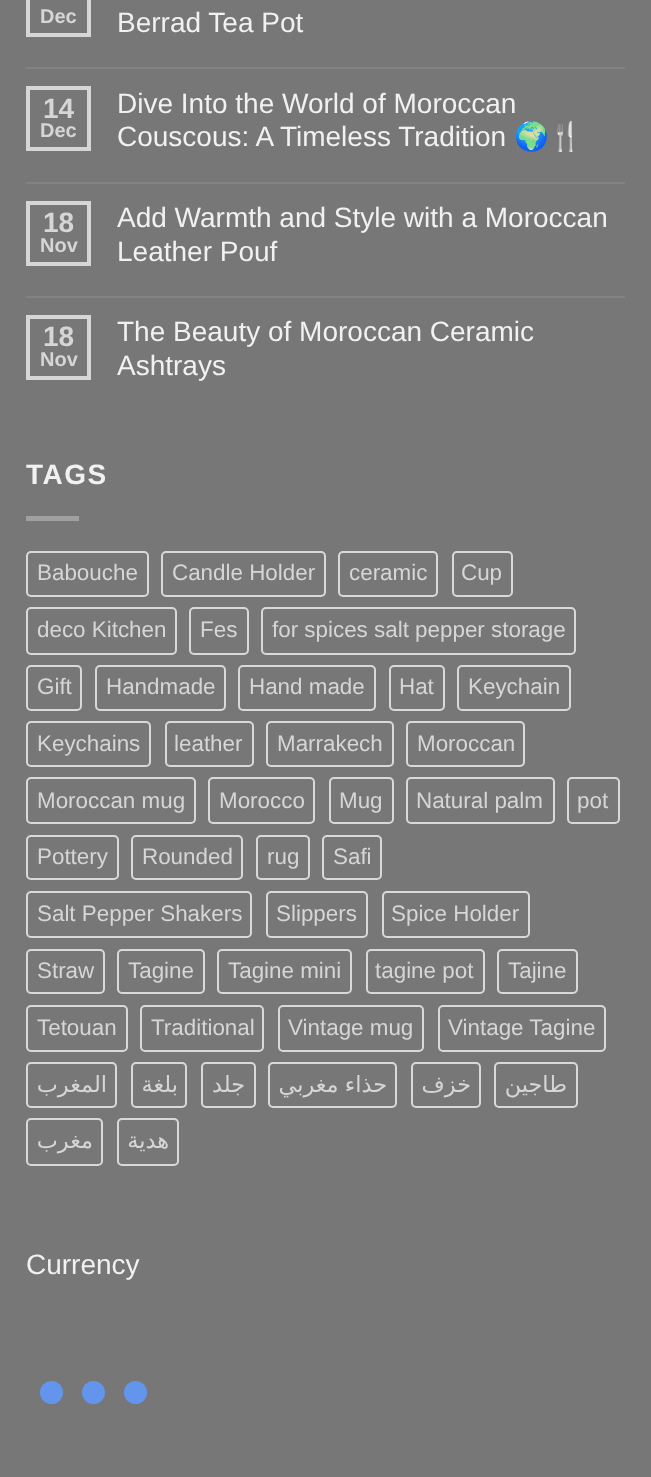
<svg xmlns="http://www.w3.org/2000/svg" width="651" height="1477">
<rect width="100%" height="100%" fill="#777"/>
<rect x="28" y="-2" width="61" height="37" fill="none" stroke="#d6d6d6" stroke-width="4"/>
<text x="40" y="23" style="font-family:Liberation Sans;font-size:20px;font-weight:bold;fill:#d6d6d6">Dec</text>
<text x="117" y="32" style="font-family:Liberation Sans;font-size:28px;fill:#f1f1f1">Berrad Tea Pot</text>
<rect x="26" y="67" width="599" height="2" fill="#828282"/>
<rect x="28" y="88" width="61" height="61" fill="none" stroke="#d6d6d6" stroke-width="4"/>
<text x="43" y="118" style="font-family:Liberation Sans;font-size:28px;font-weight:bold;fill:#d6d6d6">14</text>
<text x="40" y="137" style="font-family:Liberation Sans;font-size:20px;font-weight:bold;fill:#d6d6d6">Dec</text>
<text x="117" y="113" style="font-family:Liberation Sans;font-size:28px;fill:#f1f1f1">Dive Into the World of Moroccan</text>
<text x="117" y="146" style="font-family:Liberation Sans;font-size:28px;fill:#f1f1f1">Couscous: A Timeless Tradition</text>
<text x="514" y="146" style="font-family:Noto Color Emoji;font-size:28px;fill:#f1f1f1">🌍🍴</text>
<rect x="26" y="182" width="599" height="2" fill="#828282"/>
<rect x="28" y="203" width="61" height="61" fill="none" stroke="#d6d6d6" stroke-width="4"/>
<text x="43" y="232" style="font-family:Liberation Sans;font-size:28px;font-weight:bold;fill:#d6d6d6">18</text>
<text x="40" y="252" style="font-family:Liberation Sans;font-size:20px;font-weight:bold;fill:#d6d6d6">Nov</text>
<text x="117" y="227" style="font-family:Liberation Sans;font-size:28px;fill:#f1f1f1">Add Warmth and Style with a Moroccan</text>
<text x="117" y="261" style="font-family:Liberation Sans;font-size:28px;fill:#f1f1f1">Leather Pouf</text>
<rect x="26" y="296" width="599" height="2" fill="#828282"/>
<rect x="28" y="317" width="61" height="61" fill="none" stroke="#d6d6d6" stroke-width="4"/>
<text x="43" y="346" style="font-family:Liberation Sans;font-size:28px;font-weight:bold;fill:#d6d6d6">18</text>
<text x="40" y="366" style="font-family:Liberation Sans;font-size:20px;font-weight:bold;fill:#d6d6d6">Nov</text>
<text x="117" y="341" style="font-family:Liberation Sans;font-size:28px;fill:#f1f1f1">The Beauty of Moroccan Ceramic</text>
<text x="117" y="375" style="font-family:Liberation Sans;font-size:28px;fill:#f1f1f1">Ashtrays</text>
<text x="26" y="484" style="font-family:Liberation Sans;font-size:28px;font-weight:bold;letter-spacing:1.5px;fill:#f1f1f1">TAGS</text>
<rect x="26" y="516" width="53" height="5" fill="#a0a0a0"/>
<rect x="27" y="552" width="121" height="44" rx="4" fill="none" stroke="#d9d9d9" stroke-width="2"/>
<text x="37" y="580" style="font-family:Liberation Sans;font-size:22.4px;fill:#d6d6d6">Babouche</text>
<rect x="162" y="552" width="163" height="44" rx="4" fill="none" stroke="#d9d9d9" stroke-width="2"/>
<text x="172" y="580" style="font-family:Liberation Sans;font-size:22.4px;fill:#d6d6d6">Candle Holder</text>
<rect x="339" y="552" width="98" height="44" rx="4" fill="none" stroke="#d9d9d9" stroke-width="2"/>
<text x="349" y="580" style="font-family:Liberation Sans;font-size:22.4px;fill:#d6d6d6">ceramic</text>
<rect x="453" y="552" width="59" height="44" rx="4" fill="none" stroke="#d9d9d9" stroke-width="2"/>
<text x="461" y="580" style="font-family:Liberation Sans;font-size:22.4px;fill:#d6d6d6">Cup</text>
<rect x="27" y="608" width="149" height="46" rx="4" fill="none" stroke="#d9d9d9" stroke-width="2"/>
<text x="37" y="637" style="font-family:Liberation Sans;font-size:22.4px;fill:#d6d6d6">deco Kitchen</text>
<rect x="190" y="608" width="58" height="46" rx="4" fill="none" stroke="#d9d9d9" stroke-width="2"/>
<text x="200" y="637" style="font-family:Liberation Sans;font-size:22.4px;fill:#d6d6d6">Fes</text>
<rect x="262" y="608" width="313" height="46" rx="4" fill="none" stroke="#d9d9d9" stroke-width="2"/>
<text x="272" y="637" style="font-family:Liberation Sans;font-size:22.4px;fill:#d6d6d6">for spices salt pepper storage</text>
<rect x="27" y="666" width="54" height="44" rx="4" fill="none" stroke="#d9d9d9" stroke-width="2"/>
<text x="37" y="694" style="font-family:Liberation Sans;font-size:22.4px;fill:#d6d6d6">Gift</text>
<rect x="96" y="666" width="129" height="44" rx="4" fill="none" stroke="#d9d9d9" stroke-width="2"/>
<text x="106" y="694" style="font-family:Liberation Sans;font-size:22.4px;fill:#d6d6d6">Handmade</text>
<rect x="239" y="666" width="136" height="44" rx="4" fill="none" stroke="#d9d9d9" stroke-width="2"/>
<text x="249" y="694" style="font-family:Liberation Sans;font-size:22.4px;fill:#d6d6d6">Hand made</text>
<rect x="390" y="666" width="54" height="44" rx="4" fill="none" stroke="#d9d9d9" stroke-width="2"/>
<text x="399" y="694" style="font-family:Liberation Sans;font-size:22.4px;fill:#d6d6d6">Hat</text>
<rect x="458" y="666" width="112" height="44" rx="4" fill="none" stroke="#d9d9d9" stroke-width="2"/>
<text x="468" y="694" style="font-family:Liberation Sans;font-size:22.4px;fill:#d6d6d6">Keychain</text>
<rect x="27" y="722" width="123" height="44" rx="4" fill="none" stroke="#d9d9d9" stroke-width="2"/>
<text x="37" y="751" style="font-family:Liberation Sans;font-size:22.4px;fill:#d6d6d6">Keychains</text>
<rect x="166" y="722" width="87" height="44" rx="4" fill="none" stroke="#d9d9d9" stroke-width="2"/>
<text x="174" y="751" style="font-family:Liberation Sans;font-size:22.4px;fill:#d6d6d6">leather</text>
<rect x="267" y="722" width="126" height="44" rx="4" fill="none" stroke="#d9d9d9" stroke-width="2"/>
<text x="277" y="751" style="font-family:Liberation Sans;font-size:22.4px;fill:#d6d6d6">Marrakech</text>
<rect x="407" y="722" width="117" height="44" rx="4" fill="none" stroke="#d9d9d9" stroke-width="2"/>
<text x="417" y="751" style="font-family:Liberation Sans;font-size:22.4px;fill:#d6d6d6">Moroccan</text>
<rect x="27" y="778" width="168" height="45" rx="4" fill="none" stroke="#d9d9d9" stroke-width="2"/>
<text x="37" y="808" style="font-family:Liberation Sans;font-size:22.4px;fill:#d6d6d6">Moroccan mug</text>
<rect x="209" y="778" width="105" height="45" rx="4" fill="none" stroke="#d9d9d9" stroke-width="2"/>
<text x="219" y="808" style="font-family:Liberation Sans;font-size:22.4px;fill:#d6d6d6">Morocco</text>
<rect x="330" y="778" width="63" height="45" rx="4" fill="none" stroke="#d9d9d9" stroke-width="2"/>
<text x="339" y="808" style="font-family:Liberation Sans;font-size:22.4px;fill:#d6d6d6">Mug</text>
<rect x="407" y="778" width="147" height="45" rx="4" fill="none" stroke="#d9d9d9" stroke-width="2"/>
<text x="416" y="808" style="font-family:Liberation Sans;font-size:22.4px;fill:#d6d6d6">Natural palm</text>
<rect x="568" y="778" width="51" height="45" rx="4" fill="none" stroke="#d9d9d9" stroke-width="2"/>
<text x="577" y="808" style="font-family:Liberation Sans;font-size:22.4px;fill:#d6d6d6">pot</text>
<rect x="27" y="836" width="91" height="43" rx="4" fill="none" stroke="#d9d9d9" stroke-width="2"/>
<text x="37" y="864" style="font-family:Liberation Sans;font-size:22.4px;fill:#d6d6d6">Pottery</text>
<rect x="132" y="836" width="110" height="43" rx="4" fill="none" stroke="#d9d9d9" stroke-width="2"/>
<text x="142" y="864" style="font-family:Liberation Sans;font-size:22.4px;fill:#d6d6d6">Rounded</text>
<rect x="257" y="836" width="52" height="43" rx="4" fill="none" stroke="#d9d9d9" stroke-width="2"/>
<text x="267" y="864" style="font-family:Liberation Sans;font-size:22.4px;fill:#d6d6d6">rug</text>
<rect x="323" y="836" width="58" height="43" rx="4" fill="none" stroke="#d9d9d9" stroke-width="2"/>
<text x="333" y="864" style="font-family:Liberation Sans;font-size:22.4px;fill:#d6d6d6">Safi</text>
<rect x="27" y="892" width="224" height="45" rx="4" fill="none" stroke="#d9d9d9" stroke-width="2"/>
<text x="37" y="921" style="font-family:Liberation Sans;font-size:22.4px;fill:#d6d6d6">Salt Pepper Shakers</text>
<rect x="267" y="892" width="100" height="45" rx="4" fill="none" stroke="#d9d9d9" stroke-width="2"/>
<text x="276" y="921" style="font-family:Liberation Sans;font-size:22.4px;fill:#d6d6d6">Slippers</text>
<rect x="383" y="892" width="146" height="45" rx="4" fill="none" stroke="#d9d9d9" stroke-width="2"/>
<text x="391" y="921" style="font-family:Liberation Sans;font-size:22.4px;fill:#d6d6d6">Spice Holder</text>
<rect x="27" y="950" width="77" height="43" rx="4" fill="none" stroke="#d9d9d9" stroke-width="2"/>
<text x="37" y="978" style="font-family:Liberation Sans;font-size:22.4px;fill:#d6d6d6">Straw</text>
<rect x="118" y="950" width="86" height="43" rx="4" fill="none" stroke="#d9d9d9" stroke-width="2"/>
<text x="128" y="978" style="font-family:Liberation Sans;font-size:22.4px;fill:#d6d6d6">Tagine</text>
<rect x="218" y="950" width="133" height="43" rx="4" fill="none" stroke="#d9d9d9" stroke-width="2"/>
<text x="228" y="978" style="font-family:Liberation Sans;font-size:22.4px;fill:#d6d6d6">Tagine mini</text>
<rect x="367" y="950" width="117" height="43" rx="4" fill="none" stroke="#d9d9d9" stroke-width="2"/>
<text x="375" y="978" style="font-family:Liberation Sans;font-size:22.4px;fill:#d6d6d6">tagine pot</text>
<rect x="498" y="950" width="79" height="43" rx="4" fill="none" stroke="#d9d9d9" stroke-width="2"/>
<text x="508" y="978" style="font-family:Liberation Sans;font-size:22.4px;fill:#d6d6d6">Tajine</text>
<rect x="27" y="1006" width="100" height="45" rx="4" fill="none" stroke="#d9d9d9" stroke-width="2"/>
<text x="37" y="1035" style="font-family:Liberation Sans;font-size:22.4px;fill:#d6d6d6">Tetouan</text>
<rect x="141" y="1006" width="122" height="45" rx="4" fill="none" stroke="#d9d9d9" stroke-width="2"/>
<text x="151" y="1035" style="font-family:Liberation Sans;font-size:22.4px;fill:#d6d6d6">Traditional</text>
<rect x="279" y="1006" width="144" height="45" rx="4" fill="none" stroke="#d9d9d9" stroke-width="2"/>
<text x="288" y="1035" style="font-family:Liberation Sans;font-size:22.4px;fill:#d6d6d6">Vintage mug</text>
<rect x="439" y="1006" width="166" height="45" rx="4" fill="none" stroke="#d9d9d9" stroke-width="2"/>
<text x="448" y="1035" style="font-family:Liberation Sans;font-size:22.4px;fill:#d6d6d6">Vintage Tagine</text>
<rect x="27" y="1063" width="89" height="44" rx="4" fill="none" stroke="#d9d9d9" stroke-width="2"/>
<text x="107" y="1092" style="font-family:DejaVu Sans;font-size:22.4px;direction:rtl;fill:#d6d6d6">المغرب</text>
<rect x="132" y="1063" width="54" height="44" rx="4" fill="none" stroke="#d9d9d9" stroke-width="2"/>
<text x="178" y="1092" style="font-family:DejaVu Sans;font-size:22.4px;direction:rtl;fill:#d6d6d6">بلغة</text>
<rect x="202" y="1063" width="53" height="44" rx="4" fill="none" stroke="#d9d9d9" stroke-width="2"/>
<text x="245" y="1092" style="font-family:DejaVu Sans;font-size:22.4px;direction:rtl;fill:#d6d6d6">جلد</text>
<rect x="269" y="1063" width="127" height="44" rx="4" fill="none" stroke="#d9d9d9" stroke-width="2"/>
<text x="387" y="1092" word-spacing="-1" style="font-family:DejaVu Sans;font-size:22.4px;direction:rtl;fill:#d6d6d6">حذاء مغربي</text>
<rect x="412" y="1063" width="68" height="44" rx="4" fill="none" stroke="#d9d9d9" stroke-width="2"/>
<text x="471" y="1092" style="font-family:DejaVu Sans;font-size:22.4px;direction:rtl;fill:#d6d6d6">خزف</text>
<rect x="495" y="1063" width="82" height="44" rx="4" fill="none" stroke="#d9d9d9" stroke-width="2"/>
<text x="567" y="1092" style="font-family:DejaVu Sans;font-size:22.4px;direction:rtl;fill:#d6d6d6">طاجين</text>
<rect x="27" y="1119" width="75" height="46" rx="4" fill="none" stroke="#d9d9d9" stroke-width="2"/>
<text x="93" y="1148" style="font-family:DejaVu Sans;font-size:22.4px;direction:rtl;fill:#d6d6d6">مغرب</text>
<rect x="118" y="1119" width="60" height="46" rx="4" fill="none" stroke="#d9d9d9" stroke-width="2"/>
<text x="169" y="1148" style="font-family:DejaVu Sans;font-size:22.4px;direction:rtl;fill:#d6d6d6">هدية</text>
<text x="26" y="1274" style="font-family:Liberation Sans;font-size:28px;fill:#f1f1f1">Currency</text>
<circle cx="51.5" cy="1392.5" r="11.5" fill="#6495ed"/>
<circle cx="93.5" cy="1392.5" r="11.5" fill="#6495ed"/>
<circle cx="135.5" cy="1392.5" r="11.5" fill="#6495ed"/>
</svg>
